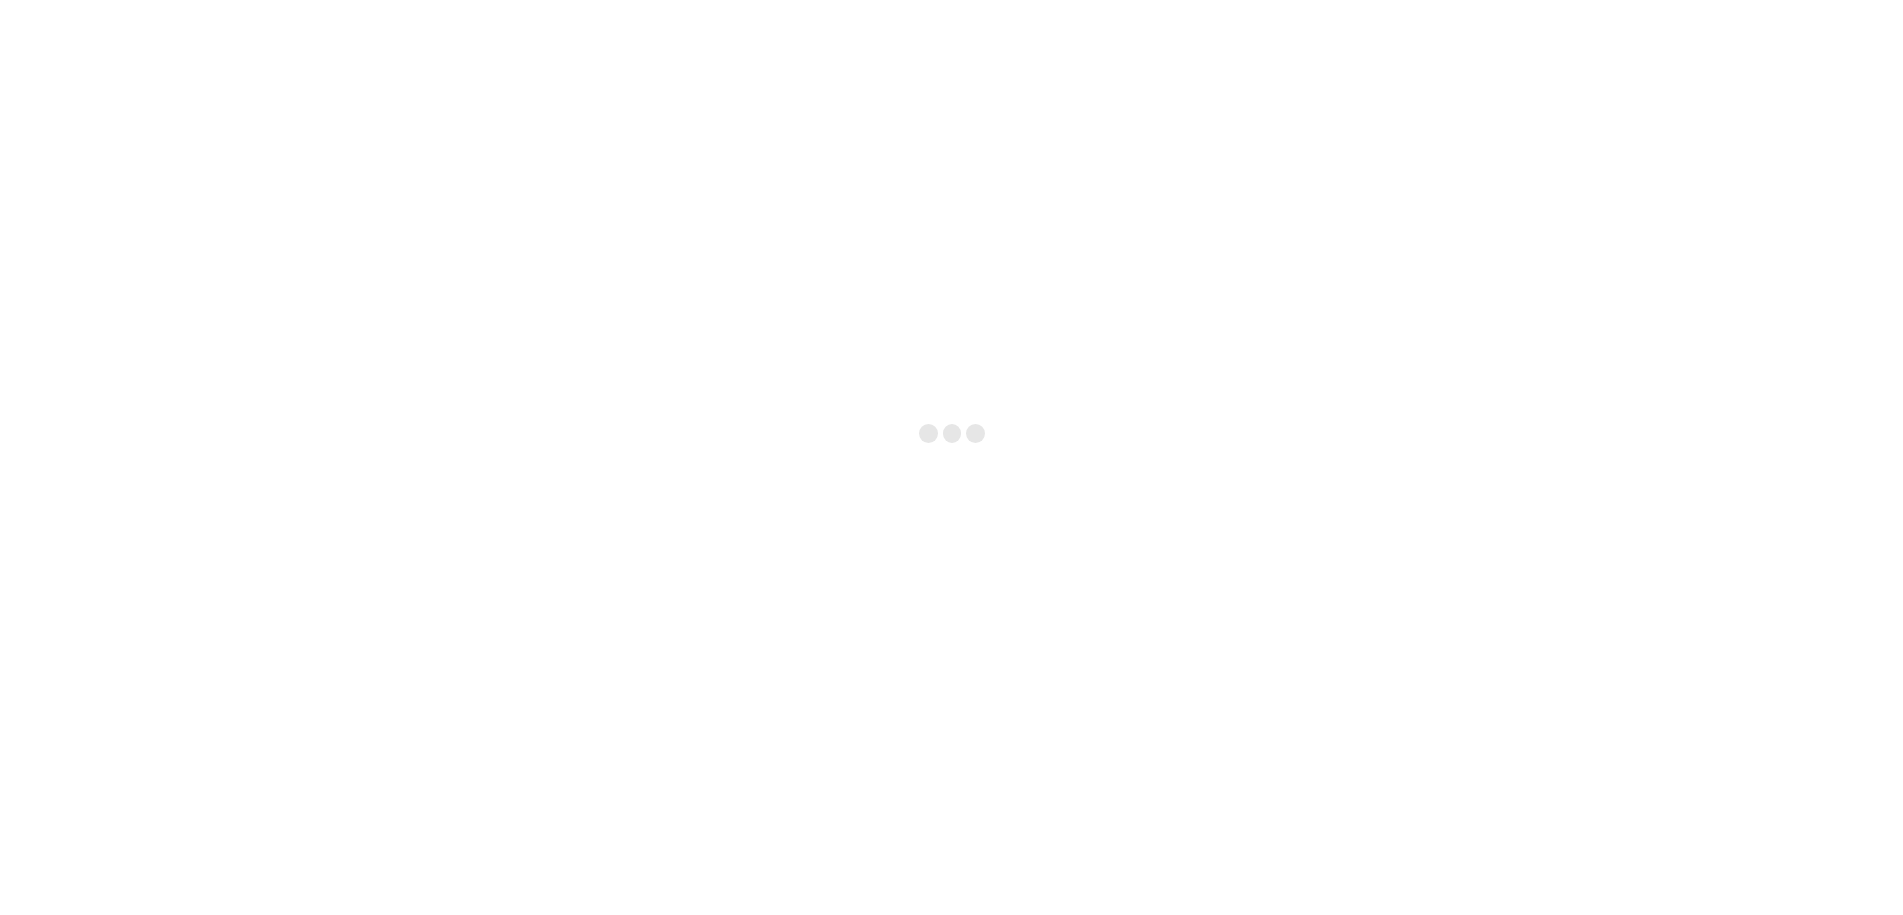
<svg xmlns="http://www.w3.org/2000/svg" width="1903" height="915">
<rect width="100%" height="100%" fill="#fff"/>
<circle cx="928.5" cy="433.5" r="9.5" fill="#e6e6e6"/>
<rect x="943" y="424" width="18" height="19" rx="9" fill="#e6e6e6"/>
<circle cx="975.5" cy="433.5" r="9.5" fill="#e6e6e6"/>
</svg>
